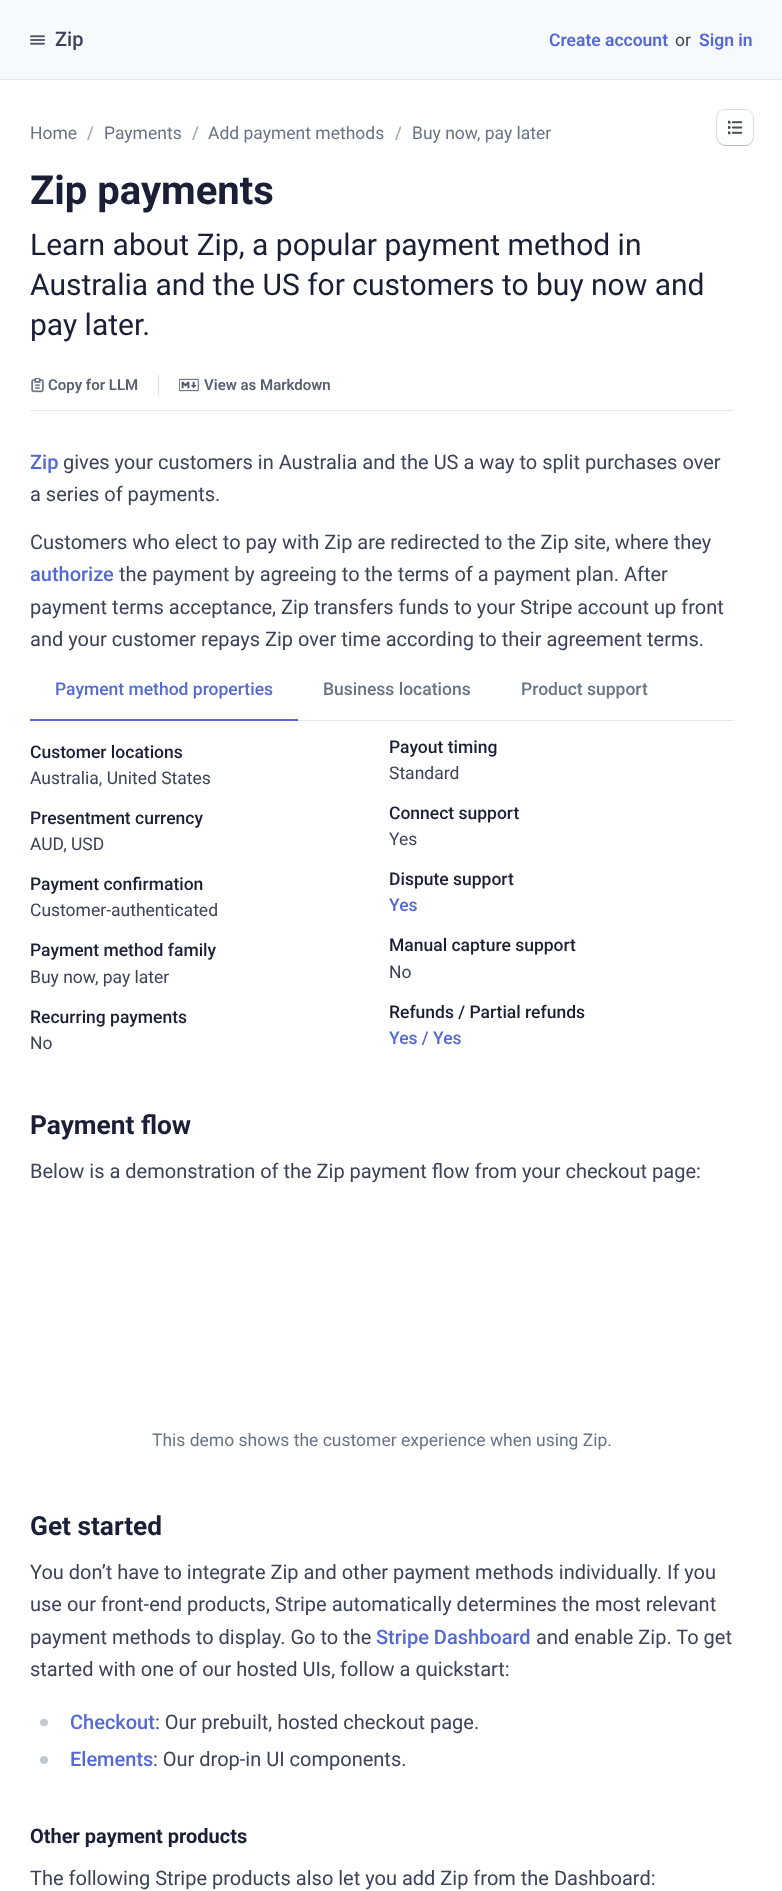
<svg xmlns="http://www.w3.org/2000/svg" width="782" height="1891">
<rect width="100%" height="100%" fill="#fff"/>
<rect width="782" height="79" fill="#f7fafc"/>
<rect y="79" width="782" height="1" fill="#e3e8ee"/>
<image x="30" y="35" width="15" height="10" href="media/1.png"/>
<text x="55" y="46" style="font-family:Roboto;font-size:20px;font-weight:500;fill:#3c4257">Zip</text>
<text x="549" y="46" style="font-family:Roboto;font-size:17.5px;font-weight:600;fill:#5469d4">Create account</text>
<text x="675" y="46" style="font-family:Roboto;font-size:17.5px;fill:#3c4257">or</text>
<text x="699" y="46" style="font-family:Roboto;font-size:17.5px;font-weight:600;fill:#5469d4">Sign in</text>
<text x="30" y="139" style="font-family:Roboto;font-size:17.5px;fill:#697386">Home</text>
<text x="87" y="139" style="font-family:Roboto;font-size:17.5px;font-weight:500;fill:#a3acb9">/</text>
<text x="104" y="139" style="font-family:Roboto;font-size:17.5px;fill:#697386">Payments</text>
<text x="192" y="139" style="font-family:Roboto;font-size:17.5px;font-weight:500;fill:#a3acb9">/</text>
<text x="208" y="139" style="font-family:Roboto;font-size:17.5px;fill:#697386">Add payment methods</text>
<text x="395" y="139" style="font-family:Roboto;font-size:17.5px;font-weight:500;fill:#a3acb9">/</text>
<text x="412" y="139" style="font-family:Roboto;font-size:17.5px;fill:#697386">Buy now, pay later</text>
<rect x="716.5" y="109.5" width="37" height="36" rx="8.5" fill="none" stroke="#d8dee4"/>
<rect x="718" y="111" width="35" height="35" rx="8" fill="#10111a29" filter="blur(0.5px)"/>
<rect x="718" y="110" width="35" height="35" rx="8" fill="#fff"/>
<image x="728" y="120" width="15" height="15" href="media/2.png"/>
<text x="30" y="204" style="font-family:Roboto;font-size:40px;font-weight:bold;fill:#1a1f36">Zip payments</text>
<text x="30" y="255" style="font-family:Roboto;font-size:30px;fill:#1a1f36">Learn about Zip, a popular payment method in</text>
<text x="30" y="295" style="font-family:Roboto;font-size:30px;fill:#1a1f36">Australia and the US for customers to buy now and</text>
<text x="30" y="335" style="font-family:Roboto;font-size:30px;fill:#1a1f36">pay later.</text>
<rect x="30" y="410" width="704" height="1" fill="#e3e8ee"/>
<image x="31" y="378" width="13" height="15" href="media/3.png"/>
<text x="48" y="390" style="font-family:Roboto;font-size:15px;font-weight:600;fill:#596171">Copy for LLM</text>
<rect x="158" y="375" width="1" height="20" fill="#d8dee4"/>
<image x="179" y="378" width="20" height="14" href="media/4.png"/>
<text x="204" y="390" style="font-family:Roboto;font-size:15px;font-weight:600;fill:#596171">View as Markdown</text>
<text x="30" y="469" style="font-family:Roboto;font-size:20px;font-weight:500;fill:#5469d4">Zip</text>
<text x="63" y="469" style="font-family:Roboto;font-size:20px;fill:#3c4257">gives your customers in Australia and the US a way to split purchases over</text>
<text x="30" y="501" style="font-family:Roboto;font-size:20px;fill:#3c4257">a series of payments.</text>
<text x="30" y="549" style="font-family:Roboto;font-size:20px;fill:#3c4257">Customers who elect to pay with Zip are redirected to the Zip site, where they</text>
<text x="30" y="581" style="font-family:Roboto;font-size:20px;font-weight:500;fill:#5469d4">authorize</text>
<text x="119" y="581" style="font-family:Roboto;font-size:20px;fill:#3c4257">the payment by agreeing to the terms of a payment plan. After</text>
<text x="30" y="614" style="font-family:Roboto;font-size:20px;fill:#3c4257">payment terms acceptance, Zip transfers funds to your Stripe account up front</text>
<text x="30" y="646" style="font-family:Roboto;font-size:20px;fill:#3c4257">and your customer repays Zip over time according to their agreement terms.</text>
<rect x="298" y="720" width="436" height="1" fill="#e3e8ee"/>
<text x="55" y="695" style="font-family:Roboto;font-size:17.5px;font-weight:500;fill:#5469d4">Payment method properties</text>
<rect x="30" y="719" width="268" height="2" fill="#5469d4"/>
<text x="323" y="695" style="font-family:Roboto;font-size:17.5px;font-weight:500;fill:#697386">Business locations</text>
<text x="521" y="695" style="font-family:Roboto;font-size:17.5px;font-weight:500;fill:#697386">Product support</text>
<text x="30" y="758" style="font-family:Roboto;font-size:17.5px;font-weight:500;fill:#1a1f36">Customer locations</text>
<text x="30" y="784" style="font-family:Roboto;font-size:17.5px;fill:#3c4257">Australia, United States</text>
<text x="389" y="753" style="font-family:Roboto;font-size:17.5px;font-weight:500;fill:#1a1f36">Payout timing</text>
<text x="389" y="779" style="font-family:Roboto;font-size:17.5px;fill:#3c4257">Standard</text>
<text x="30" y="824" style="font-family:Roboto;font-size:17.5px;font-weight:500;fill:#1a1f36">Presentment currency</text>
<text x="30" y="850" style="font-family:Roboto;font-size:17.5px;fill:#3c4257">AUD, USD</text>
<text x="389" y="819" style="font-family:Roboto;font-size:17.5px;font-weight:500;fill:#1a1f36">Connect support</text>
<text x="389" y="845" style="font-family:Roboto;font-size:17.5px;fill:#3c4257">Yes</text>
<text x="30" y="890" style="font-family:Roboto;font-size:17.5px;font-weight:500;fill:#1a1f36">Payment confirmation</text>
<text x="30" y="916" style="font-family:Roboto;font-size:17.5px;fill:#3c4257">Customer-authenticated</text>
<text x="389" y="885" style="font-family:Roboto;font-size:17.5px;font-weight:500;fill:#1a1f36">Dispute support</text>
<text x="389" y="911" style="font-family:Roboto;font-size:17.5px;font-weight:500;fill:#5469d4">Yes</text>
<text x="30" y="956" style="font-family:Roboto;font-size:17.5px;font-weight:500;fill:#1a1f36">Payment method family</text>
<text x="30" y="983" style="font-family:Roboto;font-size:17.5px;fill:#3c4257">Buy now, pay later</text>
<text x="389" y="951" style="font-family:Roboto;font-size:17.5px;font-weight:500;fill:#1a1f36">Manual capture support</text>
<text x="389" y="978" style="font-family:Roboto;font-size:17.5px;fill:#3c4257">No</text>
<text x="30" y="1023" style="font-family:Roboto;font-size:17.5px;font-weight:500;fill:#1a1f36">Recurring payments</text>
<text x="30" y="1049" style="font-family:Roboto;font-size:17.5px;fill:#3c4257">No</text>
<text x="389" y="1018" style="font-family:Roboto;font-size:17.5px;font-weight:500;fill:#1a1f36">Refunds / Partial refunds</text>
<text x="389" y="1044" style="font-family:Roboto;font-size:17.5px;font-weight:500;fill:#5469d4">Yes / Yes</text>
<text x="30" y="1134" style="font-family:Roboto;font-size:26.25px;font-weight:bold;fill:#1a1f36">Payment flow</text>
<text x="30" y="1178" style="font-family:Roboto;font-size:20px;fill:#3c4257">Below is a demonstration of the Zip payment flow from your checkout page:</text>
<text x="152" y="1446" style="font-family:Roboto;font-size:17.5px;fill:#697386">This demo shows the customer experience when using Zip.</text>
<text x="30" y="1535" style="font-family:Roboto;font-size:26.25px;font-weight:bold;fill:#1a1f36">Get started</text>
<text x="30" y="1579" style="font-family:Roboto;font-size:20px;fill:#3c4257">You don’t have to integrate Zip and other payment methods individually. If you</text>
<text x="30" y="1611" style="font-family:Roboto;font-size:20px;fill:#3c4257">use our front-end products, Stripe automatically determines the most relevant</text>
<text x="30" y="1644" style="font-family:Roboto;font-size:20px;fill:#3c4257">payment methods to display. Go to the</text>
<text x="376" y="1644" style="font-family:Roboto;font-size:20px;font-weight:500;fill:#5469d4">Stripe Dashboard</text>
<text x="536" y="1644" style="font-family:Roboto;font-size:20px;fill:#3c4257">and enable Zip. To get</text>
<text x="30" y="1676" style="font-family:Roboto;font-size:20px;fill:#3c4257">started with one of our hosted UIs, follow a quickstart:</text>
<rect x="40" y="1719" width="8" height="7" rx="3.5" fill="#c1c9d2"/>
<text x="70" y="1729" style="font-family:Roboto;font-size:20px;font-weight:500;fill:#5469d4">Checkout</text>
<text x="155" y="1729" style="font-family:Roboto;font-size:20px;fill:#3c4257">: Our prebuilt, hosted checkout page.</text>
<circle cx="44" cy="1760" r="4" fill="#c1c9d2"/>
<text x="70" y="1766" style="font-family:Roboto;font-size:20px;font-weight:500;fill:#5469d4">Elements</text>
<text x="153" y="1766" style="font-family:Roboto;font-size:20px;fill:#3c4257">: Our drop-in UI components.</text>
<text x="30" y="1843" style="font-family:Roboto;font-size:20px;font-weight:bold;fill:#1a1f36">Other payment products</text>
<text x="30" y="1885" style="font-family:Roboto;font-size:20px;fill:#3c4257">The following Stripe products also let you add Zip from the Dashboard:</text>
</svg>
